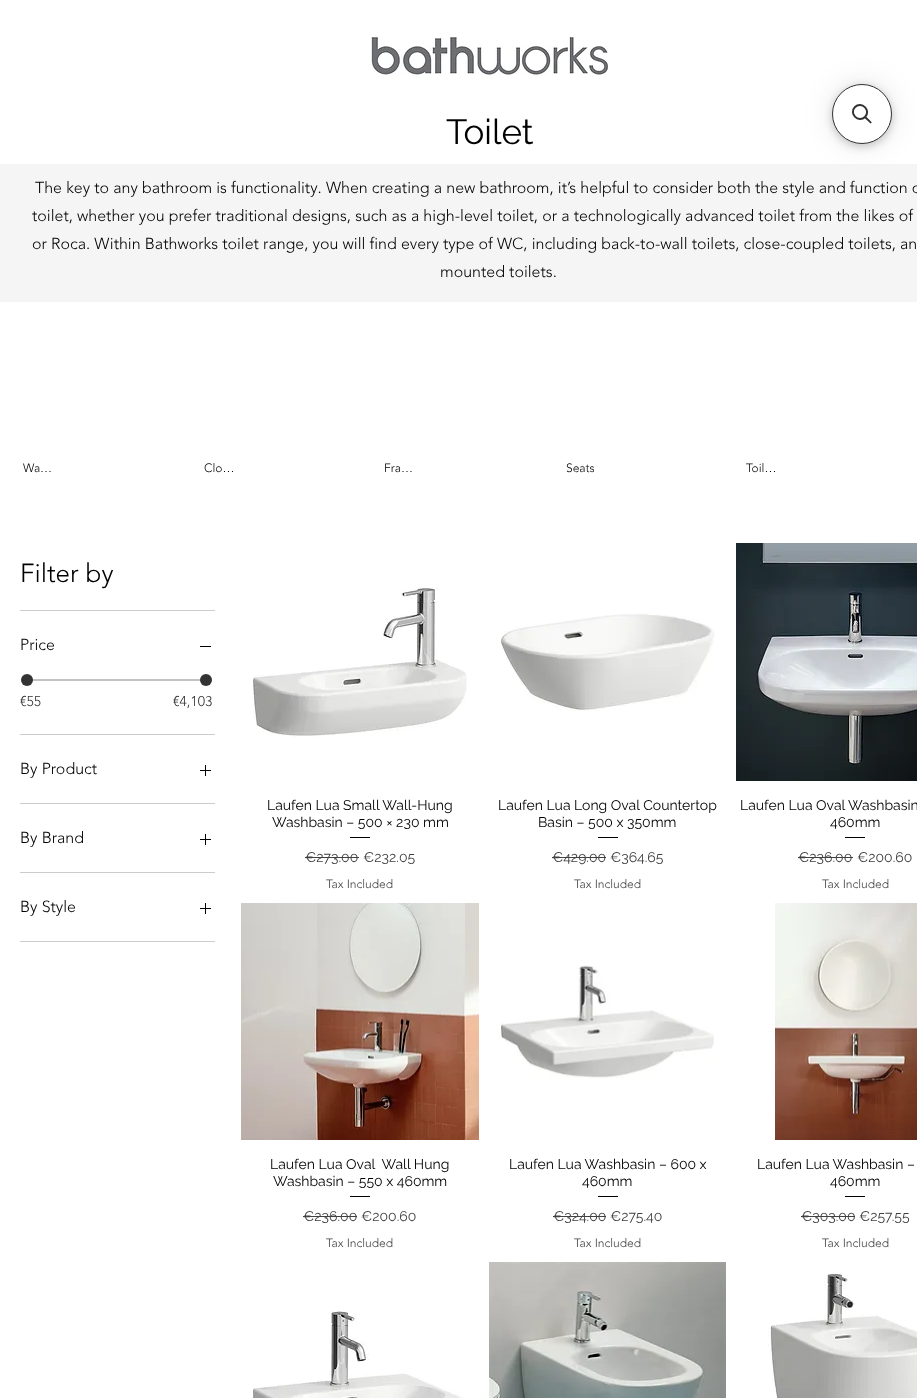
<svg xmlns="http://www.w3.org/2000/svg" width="917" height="1398">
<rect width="100%" height="100%" fill="#fff"/>
<rect x="832" y="88" width="60" height="60" rx="30" fill="#0000000d" filter="blur(4px)"/>
<rect x="832" y="86" width="60" height="60" rx="30" fill="#00000026" filter="blur(4px)"/>
<rect y="164" width="917" height="138" fill="#f5f5f5"/>
<rect x="832" y="84" width="60" height="60" rx="30" fill="#0000001a" filter="blur(15px)"/>
<circle cx="862" cy="114" r="29.5" fill="#fff" stroke="#333"/>
<path d="M855 107c6.5-6.5 16.5 3.5 10 10c-6.5 6.5-16.5-3.5-10-10z" fill="none" stroke="#333" stroke-width="2"/>
<path d="M864 117.5l1.5-1.5l6 6c.5 1-1 2-1.5 1z" fill="#333"/>
<image x="370" y="34" width="239" height="44" href="media/1.png"/>
<text x="446" y="144" style="font-family:Raleway;font-size:35px;fill:#000">Toilet</text>
<text x="35" y="193" style="font-family:'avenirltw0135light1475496';font-size:16px;font-weight:300;fill:#000">The key to any bathroom is functionality. When creating a new bathroom, it’s helpful to consider both the style and function o</text>
<text x="32" y="221" style="font-family:'avenirltw0135light1475496';font-size:16px;font-weight:300;fill:#000">toilet, whether you prefer traditional designs, such as a high-level toilet, or a technologically advanced toilet from the likes of</text>
<text x="32" y="249" style="font-family:'avenirltw0135light1475496';font-size:16px;font-weight:300;fill:#000">or Roca. Within Bathworks toilet range, you will find every type of WC, including back-to-wall toilets, close-coupled toilets, an</text>
<text x="440" y="277" style="font-family:'avenirltw0135light1475496';font-size:16px;font-weight:300;fill:#000">mounted toilets.</text>
<text x="23" y="472" style="font-family:'avenirltw0135light1475496';font-size:12px;font-weight:300;fill:#000">Wa…</text>
<text x="204" y="472" style="font-family:'avenirltw0135light1475496';font-size:12px;font-weight:300;fill:#000">Clo…</text>
<text x="384" y="472" style="font-family:'avenirltw0135light1475496';font-size:12px;font-weight:300;fill:#000">Fra…</text>
<text x="566" y="472" style="font-family:'avenirltw0135light1475496';font-size:12px;font-weight:300;fill:#000">Seats</text>
<text x="746" y="472" style="font-family:'avenirltw0135light1475496';font-size:12px;font-weight:300;fill:#000">Toil…</text>
<rect x="20" y="610" width="195" height="1" fill="#ccc"/>
<text x="20" y="582" style="font-family:'avenirltw0135light1475496';font-size:26px;font-weight:300;fill:#000">Filter by</text>
<rect x="20" y="734" width="195" height="1" fill="#ccc"/>
<text x="20" y="650" style="font-family:'avenirltw0135light1475496';font-size:16px;font-weight:300;fill:#000">Price</text>
<rect x="200" y="646" width="11" height="1" fill="#000"/>
<rect x="26" y="679" width="179" height="2" fill="#c2c2c2"/>
<circle cx="27" cy="680" r="6" fill="#333"/>
<circle cx="206" cy="680" r="6" fill="#333"/>
<text x="20" y="706" style="font-family:'avenirltw0135light1475496';font-size:14px;font-weight:300;fill:#333">€55</text>
<text x="173" y="706" style="font-family:'avenirltw0135light1475496';font-size:14px;font-weight:300;fill:#333">€4,103</text>
<rect x="20" y="803" width="195" height="1" fill="#ccc"/>
<text x="20" y="774" style="font-family:'avenirltw0135light1475496';font-size:16px;font-weight:300;fill:#000">By Product</text>
<image x="200" y="765" width="11" height="11" href="media/2.png"/>
<rect x="20" y="872" width="195" height="1" fill="#ccc"/>
<text x="20" y="843" style="font-family:'avenirltw0135light1475496';font-size:16px;font-weight:300;fill:#000">By Brand</text>
<image x="200" y="834" width="11" height="11" href="media/2.png"/>
<rect x="20" y="941" width="195" height="1" fill="#ccc"/>
<text x="20" y="912" style="font-family:'avenirltw0135light1475496';font-size:16px;font-weight:300;fill:#000">By Style</text>
<image x="200" y="903" width="11" height="11" href="media/2.png"/>
<image x="253" y="587" width="214" height="150" href="media/3.png"/>
<text x="267" y="810" style="font-family:Raleway;font-size:14px;fill:#000">Laufen Lua Small Wall-Hung</text>
<text x="272" y="827" style="font-family:Raleway;font-size:14px;fill:#000">Washbasin – 500 × 230 mm</text>
<rect x="350" y="837" width="20" height="1" fill="#000"/>
<text x="305" y="862" style="font-family:Raleway;font-size:14px;fill:#404040">€273.00</text>
<rect x="305" y="857" width="54" height="1" fill="#404040"/>
<text x="363" y="862" style="font-family:Raleway;font-size:14px;fill:#404040">€232.05</text>
<text x="326" y="888" style="font-family:'avenirltw0135light1475496';font-size:12px;font-weight:300;fill:#404040">Tax Included</text>
<image x="501" y="614" width="214" height="97" href="media/4.png"/>
<text x="498" y="810" style="font-family:Raleway;font-size:14px;fill:#000">Laufen Lua Long Oval Countertop</text>
<text x="538" y="827" style="font-family:Raleway;font-size:14px;fill:#000">Basin – 500 x 350mm</text>
<rect x="598" y="837" width="20" height="1" fill="#000"/>
<text x="552" y="862" style="font-family:Raleway;font-size:14px;fill:#404040">€429.00</text>
<rect x="552" y="857" width="54" height="1" fill="#404040"/>
<text x="610" y="862" style="font-family:Raleway;font-size:14px;fill:#404040">€364.65</text>
<text x="574" y="888" style="font-family:'avenirltw0135light1475496';font-size:12px;font-weight:300;fill:#404040">Tax Included</text>
<image x="736" y="543" width="181" height="238" href="media/5.png"/>
<text x="740" y="810" style="font-family:Raleway;font-size:14px;fill:#000">Laufen Lua Oval Washbasin</text>
<text x="830" y="827" style="font-family:Raleway;font-size:14px;fill:#000">460mm</text>
<rect x="845" y="837" width="20" height="1" fill="#000"/>
<text x="798" y="862" style="font-family:Raleway;font-size:14px;fill:#404040">€236.00</text>
<rect x="798" y="857" width="55" height="1" fill="#404040"/>
<text x="857" y="862" style="font-family:Raleway;font-size:14px;fill:#404040">€200.60</text>
<text x="822" y="888" style="font-family:'avenirltw0135light1475496';font-size:12px;font-weight:300;fill:#404040">Tax Included</text>
<image x="241" y="903" width="238" height="237" href="media/6.png"/>
<text x="270" y="1169" style="font-family:Raleway;font-size:14px;fill:#000" xml:space="preserve">Laufen Lua Oval  Wall Hung</text>
<text x="273" y="1186" style="font-family:Raleway;font-size:14px;fill:#000">Washbasin – 550 x 460mm</text>
<rect x="350" y="1196" width="20" height="1" fill="#000"/>
<text x="303" y="1221" style="font-family:Raleway;font-size:14px;fill:#404040">€236.00</text>
<rect x="303" y="1216" width="54" height="1" fill="#404040"/>
<text x="361" y="1221" style="font-family:Raleway;font-size:14px;fill:#404040">€200.60</text>
<text x="326" y="1247" style="font-family:'avenirltw0135light1475496';font-size:12px;font-weight:300;fill:#404040">Tax Included</text>
<image x="501" y="965" width="213" height="113" href="media/7.png"/>
<text x="509" y="1169" style="font-family:Raleway;font-size:14px;fill:#000">Laufen Lua Washbasin – 600 x</text>
<text x="582" y="1186" style="font-family:Raleway;font-size:14px;fill:#000">460mm</text>
<rect x="598" y="1196" width="20" height="1" fill="#000"/>
<text x="553" y="1221" style="font-family:Raleway;font-size:14px;fill:#404040">€324.00</text>
<rect x="553" y="1216" width="53" height="1" fill="#404040"/>
<text x="610" y="1221" style="font-family:Raleway;font-size:14px;fill:#404040">€275.40</text>
<text x="574" y="1247" style="font-family:'avenirltw0135light1475496';font-size:12px;font-weight:300;fill:#404040">Tax Included</text>
<image x="775" y="903" width="142" height="237" href="media/8.png"/>
<text x="757" y="1169" style="font-family:Raleway;font-size:14px;fill:#000">Laufen Lua Washbasin –</text>
<text x="830" y="1186" style="font-family:Raleway;font-size:14px;fill:#000">460mm</text>
<rect x="845" y="1196" width="20" height="1" fill="#000"/>
<text x="801" y="1221" style="font-family:Raleway;font-size:14px;fill:#404040">€303.00</text>
<rect x="801" y="1216" width="54" height="1" fill="#404040"/>
<text x="859" y="1221" style="font-family:Raleway;font-size:14px;fill:#404040">€257.55</text>
<text x="822" y="1247" style="font-family:'avenirltw0135light1475496';font-size:12px;font-weight:300;fill:#404040">Tax Included</text>
<image x="253" y="1310" width="209" height="88" href="media/9.png"/>
<image x="489" y="1262" width="237" height="136" href="media/10.png"/>
<image x="768" y="1274" width="149" height="124" href="media/11.png"/>
</svg>
